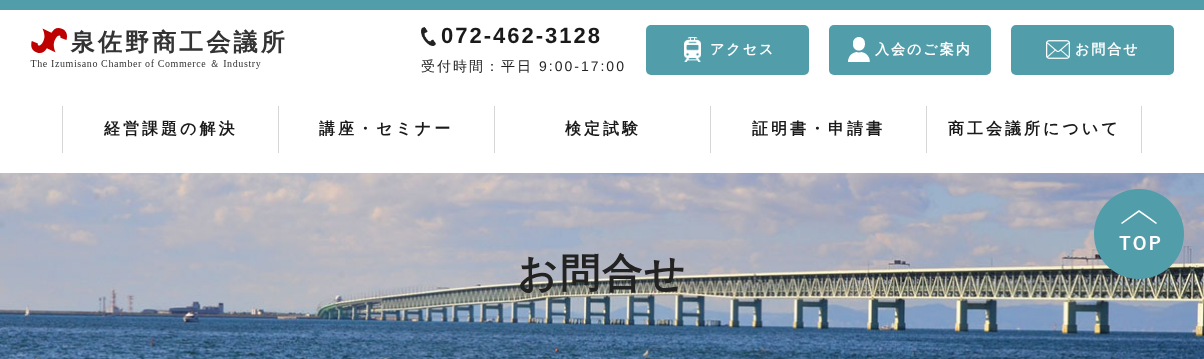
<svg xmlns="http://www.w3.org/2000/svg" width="1204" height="359">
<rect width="100%" height="100%" fill="#fff"/>
<rect width="1204" height="10" fill="#519daa"/>
<image x="30" y="28" width="255" height="41" href="media/1.png"/>
<image x="421" y="27" width="15" height="19" href="media/2.png"/>
<text x="441" y="43" style="font-family:Liberation Sans;font-size:22px;font-weight:bold;letter-spacing:2px;fill:#1a1a1a">072-462-3128</text>
<text x="421" y="71" style="font-family:WenQuanYi Zen Hei;font-size:14px;font-weight:500;letter-spacing:2px;fill:#222">受付時間：平日</text>
<text x="539" y="71" style="font-family:Liberation Sans;font-size:14px;letter-spacing:2px;fill:#222">9:00-17:00</text>
<rect x="646" y="25" width="163" height="50" rx="5" fill="#519daa"/>
<image x="684" y="37" width="17" height="25" href="media/3.png"/>
<text x="710" y="54" style="font-family:WenQuanYi Zen Hei;font-size:14px;font-weight:bold;letter-spacing:2px;fill:#fff">アクセス</text>
<rect x="829" y="25" width="162" height="50" rx="5" fill="#519daa"/>
<image x="848" y="37" width="22" height="25" href="media/4.png"/>
<text x="875" y="54" style="font-family:WenQuanYi Zen Hei;font-size:14px;font-weight:bold;letter-spacing:2px;fill:#fff">入会のご案内</text>
<rect x="1011" y="25" width="163" height="50" rx="5" fill="#519daa"/>
<image x="1046" y="40" width="24" height="19" href="media/5.png"/>
<text x="1075" y="54" style="font-family:WenQuanYi Zen Hei;font-size:14px;font-weight:bold;letter-spacing:2px;fill:#fff">お問合せ</text>
<rect x="62" y="106" width="1" height="47" fill="#d6d6d6"/>
<text x="104" y="134" style="font-family:WenQuanYi Zen Hei;font-size:16px;font-weight:bold;letter-spacing:3px;fill:#1a1a1a">経営課題の解決</text>
<rect x="278" y="106" width="1" height="47" fill="#d6d6d6"/>
<text x="319" y="134" style="font-family:WenQuanYi Zen Hei;font-size:16px;font-weight:bold;letter-spacing:3px;fill:#1a1a1a">講座・セミナー</text>
<rect x="494" y="106" width="1" height="47" fill="#d6d6d6"/>
<text x="565" y="134" style="font-family:WenQuanYi Zen Hei;font-size:16px;font-weight:bold;letter-spacing:3px;fill:#1a1a1a">検定試験</text>
<rect x="710" y="106" width="1" height="47" fill="#d6d6d6"/>
<text x="752" y="134" style="font-family:WenQuanYi Zen Hei;font-size:16px;font-weight:bold;letter-spacing:3px;fill:#1a1a1a">証明書・申請書</text>
<rect x="1141" y="106" width="1" height="47" fill="#d6d6d6"/>
<rect x="926" y="106" width="1" height="47" fill="#d6d6d6"/>
<text x="948" y="134" style="font-family:WenQuanYi Zen Hei;font-size:16px;font-weight:bold;letter-spacing:3px;fill:#1a1a1a">商工会議所について</text>
<image x="0" y="173" width="1204" height="186" href="media/6.png"/>
<text x="517" y="287" style="font-family:WenQuanYi Zen Hei;font-size:40px;font-weight:bold;letter-spacing:2px;fill:#222">お問合せ</text>
<image x="1094" y="189" width="90" height="90" href="media/7.png"/>
</svg>
